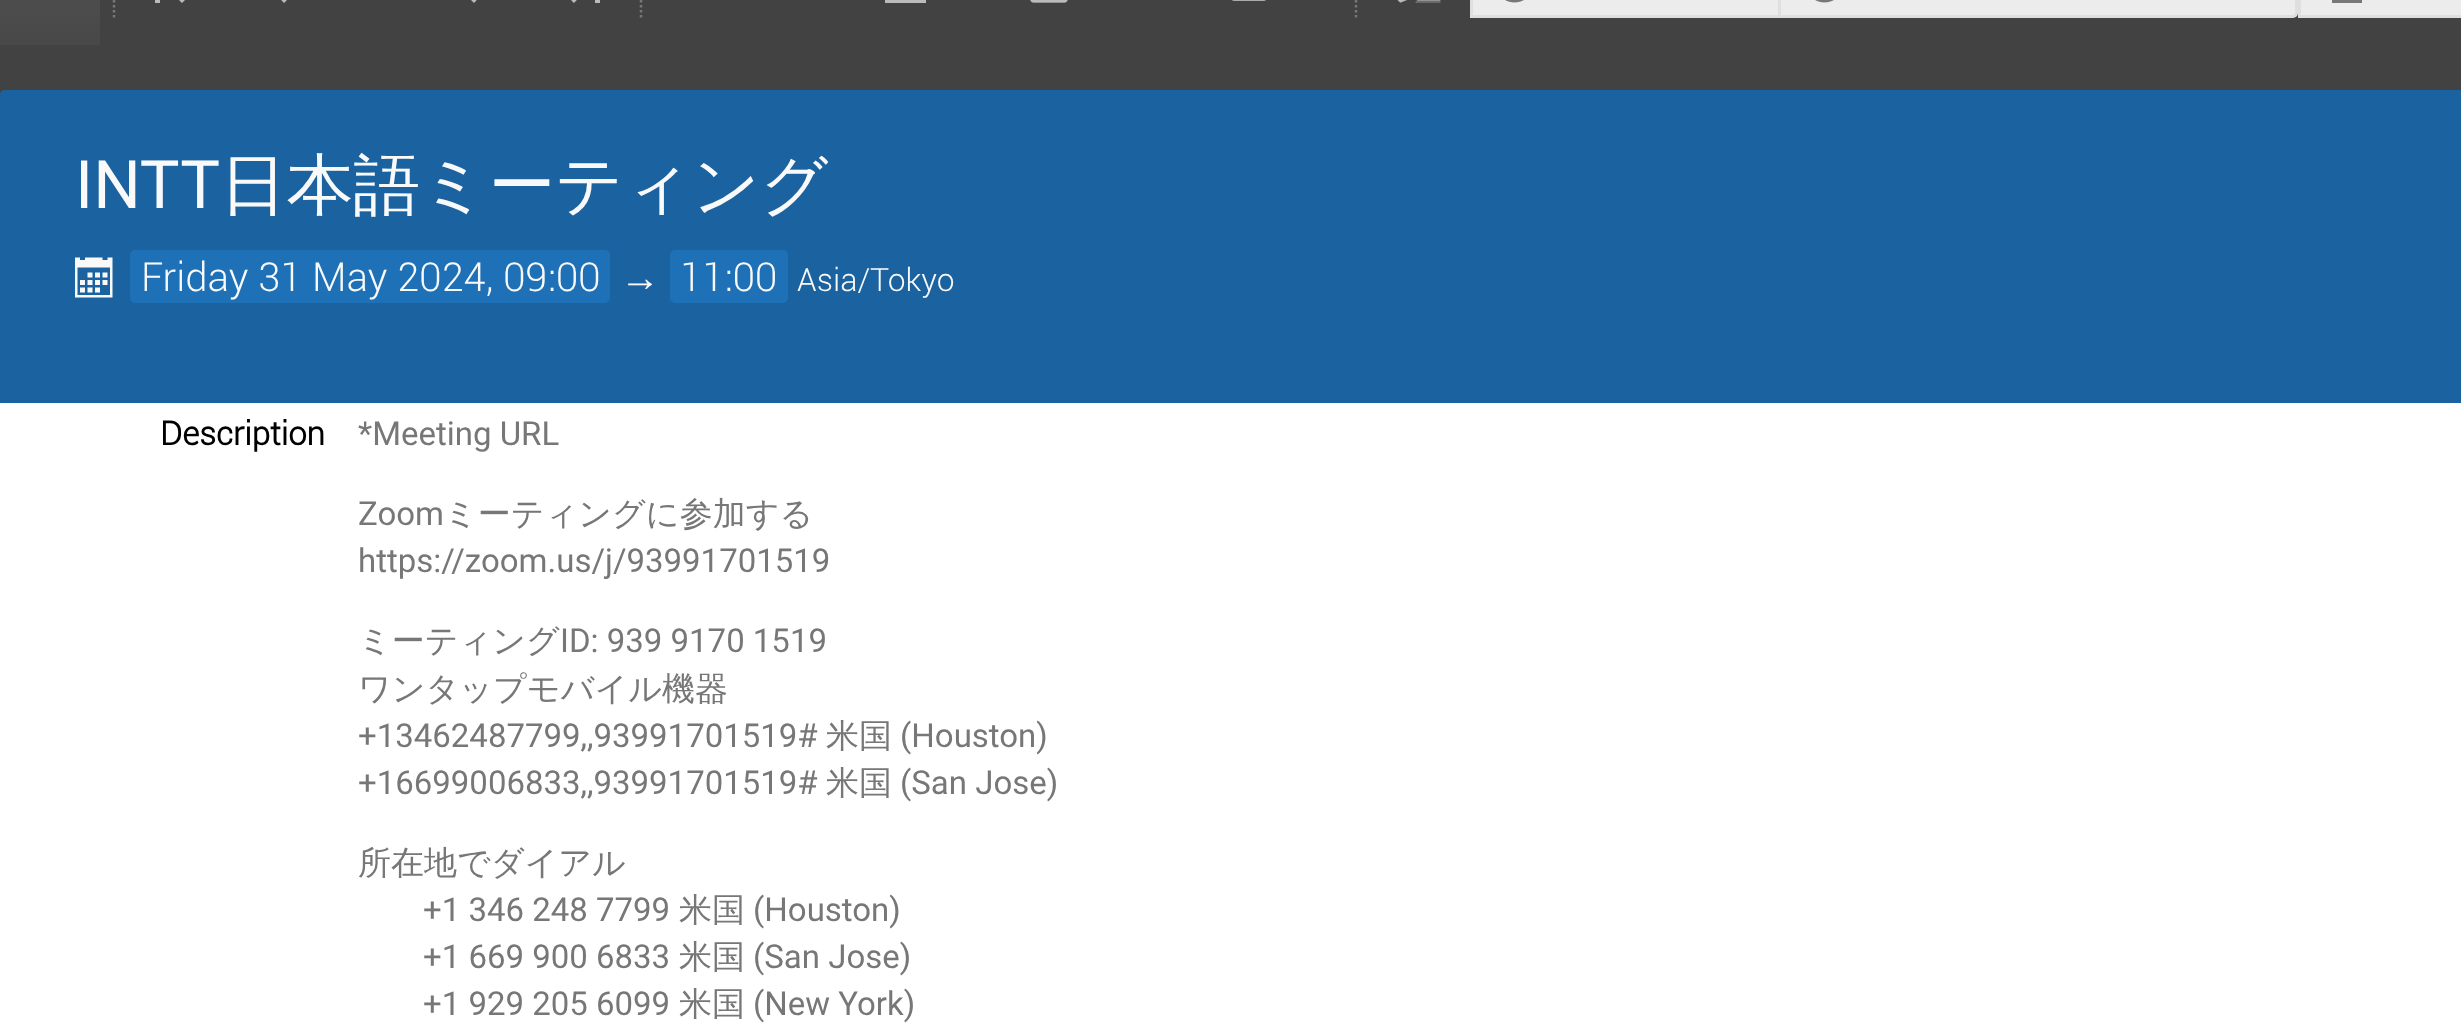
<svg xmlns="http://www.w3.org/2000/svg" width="2461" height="1036">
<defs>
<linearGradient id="g1" gradientUnits="userSpaceOnUse" x1="50" y1="-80" x2="50" y2="45"><stop offset="0" stop-color="#555"/><stop offset="1" stop-color="#484848"/></linearGradient>
</defs>
<rect width="100%" height="100%" fill="#424242"/>
<rect width="100" height="45" fill="url(#g1)"/>
<path d="M114-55v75" fill="none" stroke="#777" stroke-width="2.5" stroke-dasharray="2.5 2.5"/>
<path d="M190-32l-8-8l-22 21l22 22l8-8l-14-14zm-35-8v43h5v-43z" fill="#bbb"/>
<path d="M284 3l8-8l-13-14l13-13l-8-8l-21 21z" fill="#bbb"/>
<path d="M474-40l-8 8l13 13l-13 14l8 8l21-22z" fill="#bbb"/>
<path d="M566-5l8 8l21-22l-21-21l-8 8l13 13zm34 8v-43h-5v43z" fill="#bbb"/>
<path d="M641-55v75" fill="none" stroke="#777" stroke-width="2.5" stroke-dasharray="2.5 2.5"/>
<rect x="885" width="41" height="3" fill="#bbb"/>
<image x="1030" y="0" width="38" height="3" href="media/1.png"/>
<image x="1232" y="0" width="34" height="1" href="media/2.png"/>
<path d="M1356-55v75" fill="none" stroke="#777" stroke-width="2.5" stroke-dasharray="2.5 2.5"/>
<image x="1397" y="0" width="44" height="3" href="media/3.png"/>
<rect x="1473" width="305" height="15" fill="#ececec"/>
<rect x="1470" y="15" width="308" height="3" fill="#dfdfdf"/>
<rect x="1470" width="3" height="18" fill="#dfdfdf"/>
<image x="1505" y="0" width="19" height="3" href="media/4.png"/>
<path d="M1779.5-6.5h513.5c2 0 3.5 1.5 3.5 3.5v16c0 2-1.5 3.5-3.5 3.5h-513.5z" fill="#ececec" stroke="#dfdfdf" stroke-width="3"/>
<image x="1815" y="0" width="19" height="3" href="media/5.png"/>
<rect x="2299.5" y="-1.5" width="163" height="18" fill="#ececec" stroke="#dfdfdf" stroke-width="3"/>
<rect x="2332" width="30" height="3" fill="#777"/>
<path d="M5 90h2456c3 0 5 2 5 5v308h-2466v-308c0-3 2-5 5-5z" fill="#1a63a0"/>
<text x="75" y="208" style="font-family:Roboto;font-size:66.75px;fill:#f9f9f9">INTT</text>
<text x="220" y="208" style="font-family:WenQuanYi Zen Hei;font-size:66.75px;font-weight:500;fill:#f9f9f9">日本語ミーティング</text>
<image x="75" y="257" width="38" height="41" href="media/6.png"/>
<rect x="130" y="250" width="480" height="53" rx="5" fill="#1e71b6"/>
<text x="141" y="291" style="font-family:Roboto;font-size:40px;font-weight:300;fill:#f9f9f9">Friday 31 May 2024, 09:00</text>
<text x="620" y="291" style="font-family:Liberation Sans;font-size:40px;fill:#f9f9f9">→</text>
<rect x="670" y="250" width="118" height="53" rx="5" fill="#1e71b6"/>
<text x="680" y="291" style="font-family:Roboto;font-size:40px;font-weight:300;fill:#f9f9f9">11:00</text>
<text x="797" y="291" style="font-family:Roboto;font-size:32px;font-weight:300;fill:#f9f9f9">Asia/Tokyo</text>
<rect y="403" width="2461" height="633" fill="#fff"/>
<text x="160" y="445" style="font-family:Roboto;font-size:33px;font-weight:bold;fill:#000">Description</text>
<text x="358" y="445" style="font-family:Roboto;font-size:33px;fill:#777">*Meeting URL</text>
<text x="358" y="525" style="font-family:Roboto;font-size:33px;fill:#777">Zoom</text>
<text x="444" y="525" style="font-family:WenQuanYi Zen Hei;font-size:33px;font-weight:500;fill:#777">ミーティングに参加する</text>
<text x="358" y="572" style="font-family:Roboto;font-size:33px;fill:#777">https://zoom.us/j/93991701519</text>
<text x="358" y="652" style="font-family:WenQuanYi Zen Hei;font-size:33px;font-weight:500;fill:#777">ミーティング</text>
<text x="560" y="652" style="font-family:Roboto;font-size:33px;fill:#777">ID: 939 9170 1519</text>
<text x="358" y="700" style="font-family:WenQuanYi Zen Hei;font-size:33px;font-weight:500;fill:#777">ワンタップモバイル機器</text>
<text x="358" y="747" style="font-family:Roboto;font-size:33px;fill:#777">+13462487799,,93991701519#</text>
<text x="826" y="747" style="font-family:WenQuanYi Zen Hei;font-size:33px;font-weight:500;fill:#777">米国</text>
<text x="900" y="747" style="font-family:Roboto;font-size:33px;fill:#777">(Houston)</text>
<text x="358" y="794" style="font-family:Roboto;font-size:33px;fill:#777">+16699006833,,93991701519#</text>
<text x="826" y="794" style="font-family:WenQuanYi Zen Hei;font-size:33px;font-weight:500;fill:#777">米国</text>
<text x="900" y="794" style="font-family:Roboto;font-size:33px;fill:#777">(San Jose)</text>
<text x="358" y="874" style="font-family:WenQuanYi Zen Hei;font-size:33px;font-weight:500;fill:#777">所在地でダイアル</text>
<text x="423" y="921" style="font-family:Roboto;font-size:33px;fill:#777">+1 346 248 7799</text>
<text x="679" y="921" style="font-family:WenQuanYi Zen Hei;font-size:33px;font-weight:500;fill:#777">米国</text>
<text x="753" y="921" style="font-family:Roboto;font-size:33px;fill:#777">(Houston)</text>
<text x="423" y="968" style="font-family:Roboto;font-size:33px;fill:#777">+1 669 900 6833</text>
<text x="679" y="968" style="font-family:WenQuanYi Zen Hei;font-size:33px;font-weight:500;fill:#777">米国</text>
<text x="753" y="968" style="font-family:Roboto;font-size:33px;fill:#777">(San Jose)</text>
<text x="423" y="1015" style="font-family:Roboto;font-size:33px;fill:#777">+1 929 205 6099</text>
<text x="679" y="1015" style="font-family:WenQuanYi Zen Hei;font-size:33px;font-weight:500;fill:#777">米国</text>
<text x="753" y="1015" style="font-family:Roboto;font-size:33px;fill:#777">(New York)</text>
</svg>
